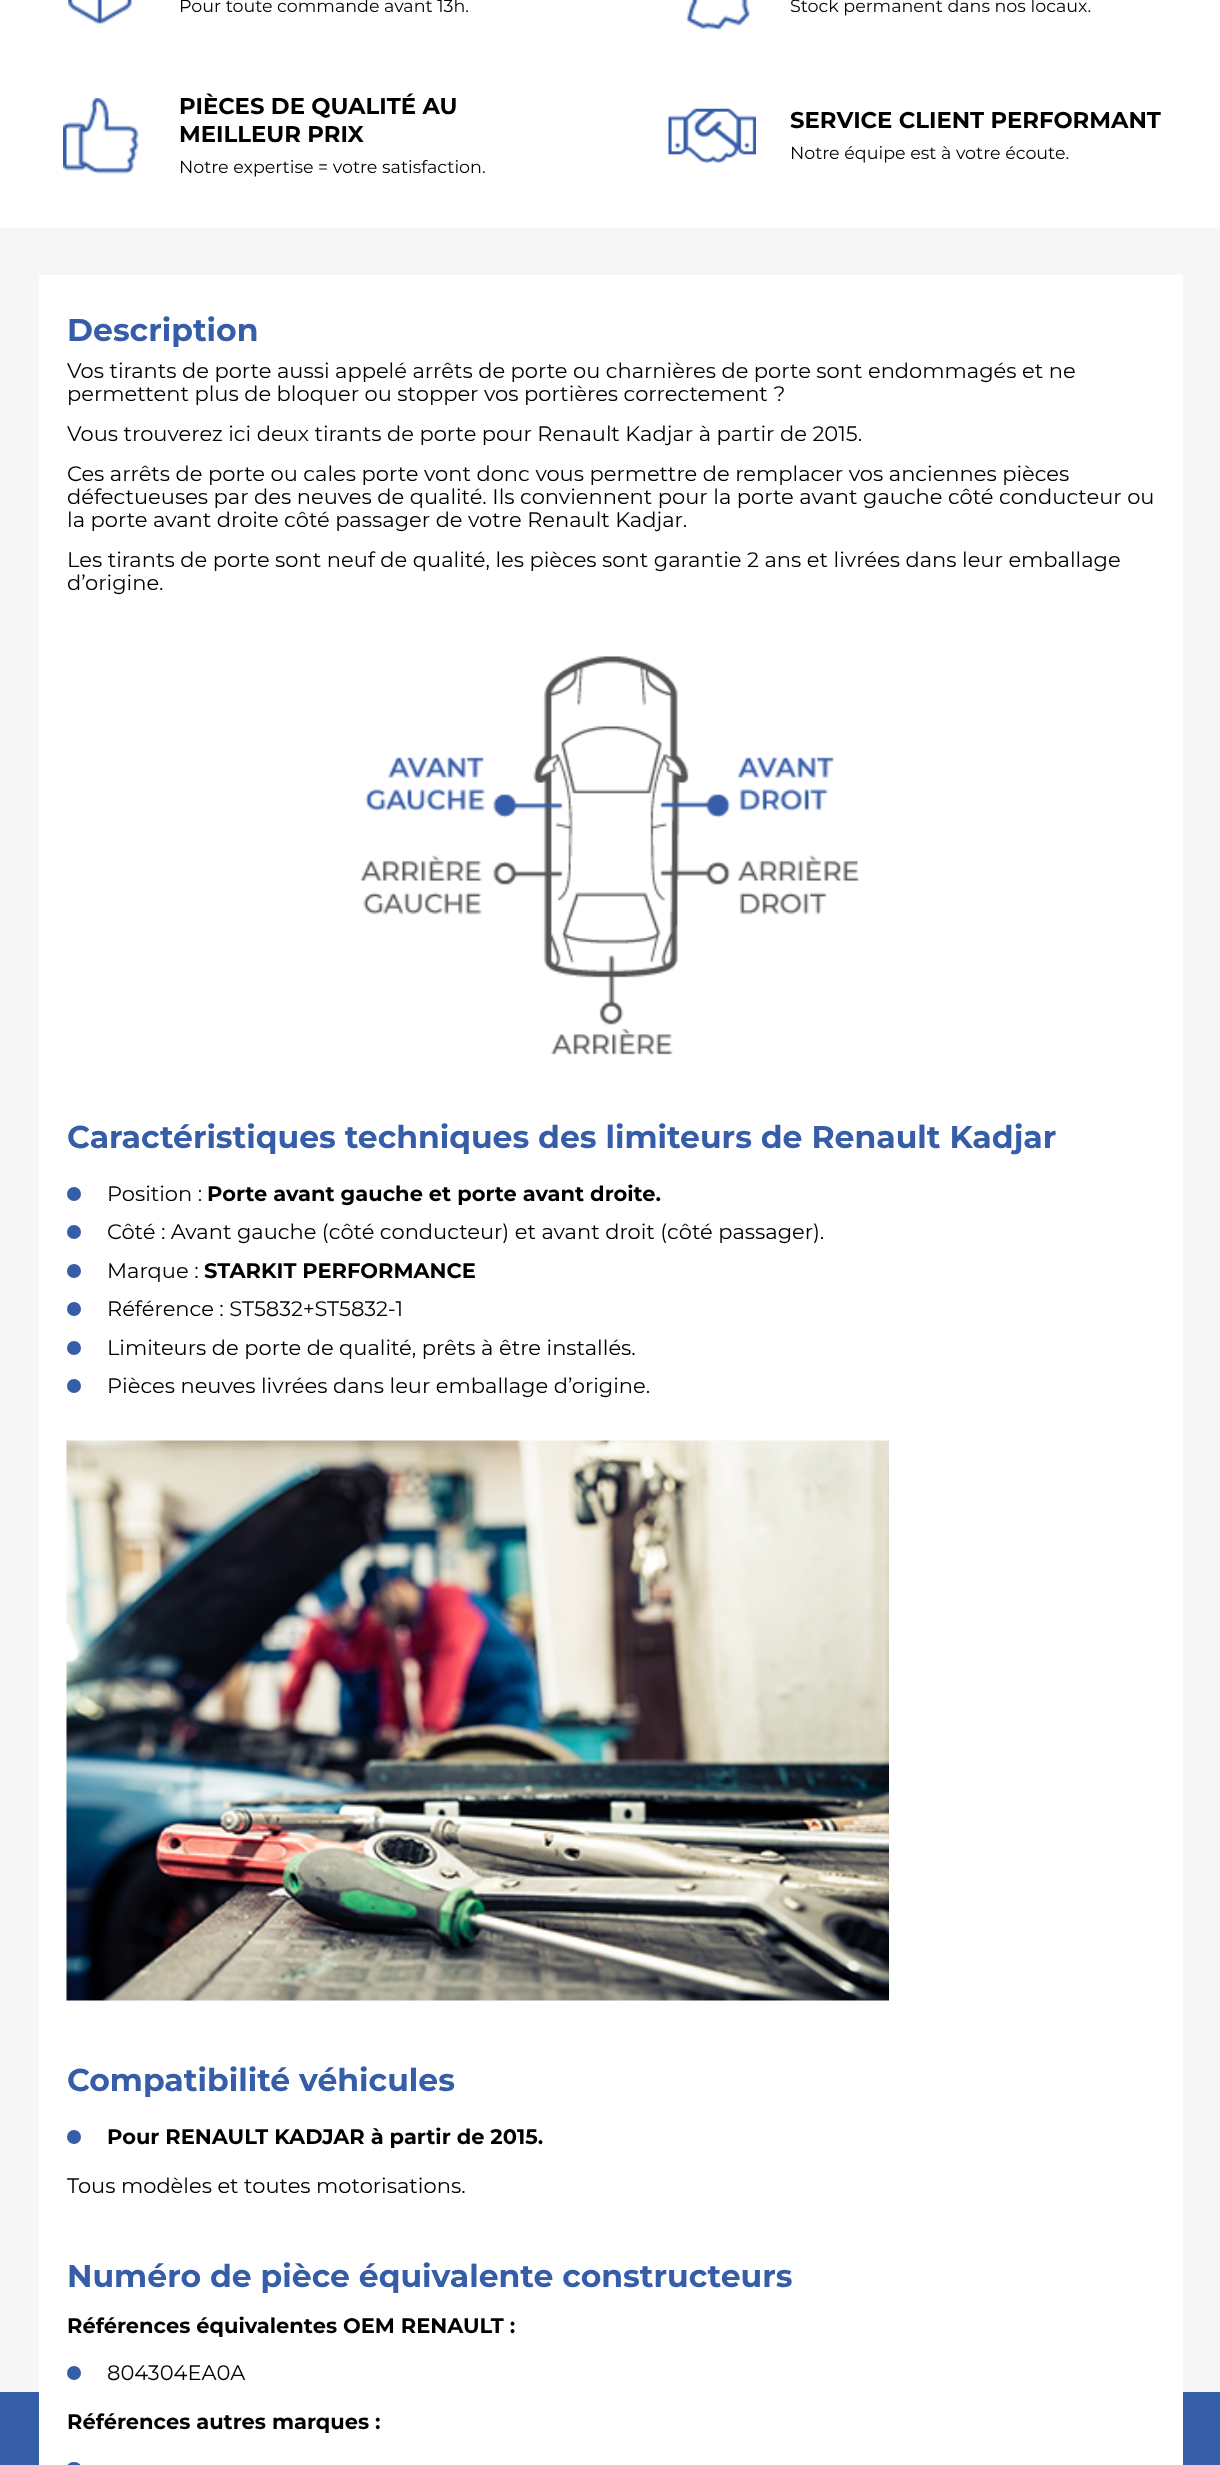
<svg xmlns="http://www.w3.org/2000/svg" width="1220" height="2465">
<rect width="100%" height="100%" fill="#fff"/>
<image x="68" y="0" width="64" height="24" href="media/1.png"/>
<text x="179" y="12" style="font-family:Montserrat;font-size:17.5px;fill:#000">Pour toute commande avant 13h.</text>
<image x="685" y="0" width="65" height="31" href="media/2.png"/>
<text x="790" y="12" style="font-family:Montserrat;font-size:17.5px;fill:#000">Stock permanent dans nos locaux.</text>
<image x="63" y="98" width="76" height="76" href="media/3.png"/>
<text x="179" y="114" style="font-family:Montserrat;font-size:22.75px;font-weight:bold;fill:#000">PIÈCES DE QUALITÉ AU</text>
<text x="179" y="142" style="font-family:Montserrat;font-size:22.75px;font-weight:bold;fill:#000">MEILLEUR PRIX</text>
<text x="179" y="173" style="font-family:Montserrat;font-size:17.5px;fill:#000">Notre expertise = votre satisfaction.</text>
<image x="668" y="108" width="88" height="55" href="media/4.png"/>
<text x="790" y="128" style="font-family:Montserrat;font-size:22.75px;font-weight:bold;fill:#000">SERVICE CLIENT PERFORMANT</text>
<text x="790" y="159" style="font-family:Montserrat;font-size:17.5px;fill:#000">Notre équipe est à votre écoute.</text>
<rect y="228" width="1220" height="2164" fill="#f6f6f6"/>
<rect y="2392" width="1220" height="73" fill="#365da8"/>
<rect x="39" y="275" width="1144" height="2190" fill="#fff"/>
<text x="67" y="341" style="font-family:Montserrat;font-size:31.5px;font-weight:bold;fill:#365da8">Description</text>
<text x="67" y="378" style="font-family:Montserrat;font-size:21px;fill:#000">Vos tirants de porte aussi appelé arrêts de porte ou charnières de porte sont endommagés et ne</text>
<text x="67" y="401" style="font-family:Montserrat;font-size:21px;fill:#000">permettent plus de bloquer ou stopper vos portières correctement ?</text>
<text x="67" y="441" style="font-family:Montserrat;font-size:21px;fill:#000">Vous trouverez ici deux tirants de porte pour Renault Kadjar à partir de 2015.</text>
<text x="67" y="481" style="font-family:Montserrat;font-size:21px;fill:#000">Ces arrêts de porte ou cales porte vont donc vous permettre de remplacer vos anciennes pièces</text>
<text x="67" y="504" style="font-family:Montserrat;font-size:21px;fill:#000">défectueuses par des neuves de qualité. Ils conviennent pour la porte avant gauche côté conducteur ou</text>
<text x="67" y="527" style="font-family:Montserrat;font-size:21px;fill:#000">la porte avant droite côté passager de votre Renault Kadjar.</text>
<text x="67" y="567" style="font-family:Montserrat;font-size:21px;fill:#000">Les tirants de porte sont neuf de qualité, les pièces sont garantie 2 ans et livrées dans leur emballage</text>
<text x="67" y="590" style="font-family:Montserrat;font-size:21px;fill:#000">d’origine.</text>
<image x="360" y="656" width="500" height="399" href="media/5.png"/>
<text x="67" y="1148" style="font-family:Montserrat;font-size:31.5px;font-weight:bold;fill:#365da8">Caractéristiques techniques des limiteurs de Renault Kadjar</text>
<circle cx="74" cy="1194" r="7" fill="#365da8"/>
<text x="107" y="1201" style="font-family:Montserrat;font-size:21px;fill:#000">Position :</text>
<text x="207" y="1201" style="font-family:Montserrat;font-size:21px;font-weight:bold;fill:#000">Porte avant gauche et porte avant droite.</text>
<circle cx="74" cy="1232" r="7" fill="#365da8"/>
<text x="107" y="1239" style="font-family:Montserrat;font-size:21px;fill:#000">Côté : Avant gauche (côté conducteur) et avant droit (côté passager).</text>
<circle cx="74" cy="1271" r="7" fill="#365da8"/>
<text x="107" y="1278" style="font-family:Montserrat;font-size:21px;fill:#000">Marque :</text>
<text x="204" y="1278" style="font-family:Montserrat;font-size:21px;font-weight:bold;fill:#000">STARKIT PERFORMANCE</text>
<circle cx="74" cy="1309" r="7" fill="#365da8"/>
<text x="107" y="1316" style="font-family:Montserrat;font-size:21px;fill:#000">Référence : ST5832+ST5832-1</text>
<circle cx="74" cy="1348" r="7" fill="#365da8"/>
<text x="107" y="1355" style="font-family:Montserrat;font-size:21px;fill:#000">Limiteurs de porte de qualité, prêts à être installés.</text>
<circle cx="74" cy="1386" r="7" fill="#365da8"/>
<text x="107" y="1393" style="font-family:Montserrat;font-size:21px;fill:#000">Pièces neuves livrées dans leur emballage d’origine.</text>
<image x="66" y="1440" width="823" height="561" href="media/6.png"/>
<text x="67" y="2091" style="font-family:Montserrat;font-size:31.5px;font-weight:bold;fill:#365da8">Compatibilité véhicules</text>
<circle cx="74" cy="2137" r="7" fill="#365da8"/>
<text x="107" y="2144" style="font-family:Montserrat;font-size:21px;font-weight:bold;fill:#000">Pour RENAULT KADJAR à partir de 2015.</text>
<text x="67" y="2193" style="font-family:Montserrat;font-size:21px;fill:#000">Tous modèles et toutes motorisations.</text>
<text x="67" y="2287" style="font-family:Montserrat;font-size:31.5px;font-weight:bold;fill:#365da8">Numéro de pièce équivalente constructeurs</text>
<text x="67" y="2333" style="font-family:Montserrat;font-size:21px;font-weight:bold;fill:#000">Références équivalentes OEM RENAULT :</text>
<circle cx="74" cy="2373" r="7" fill="#365da8"/>
<text x="107" y="2380" style="font-family:Montserrat;font-size:21px;fill:#000">804304EA0A</text>
<text x="67" y="2429" style="font-family:Montserrat;font-size:21px;font-weight:bold;fill:#000">Références autres marques :</text>
<rect x="67" y="2462" width="14" height="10" rx="7" fill="#365da8"/>
</svg>
